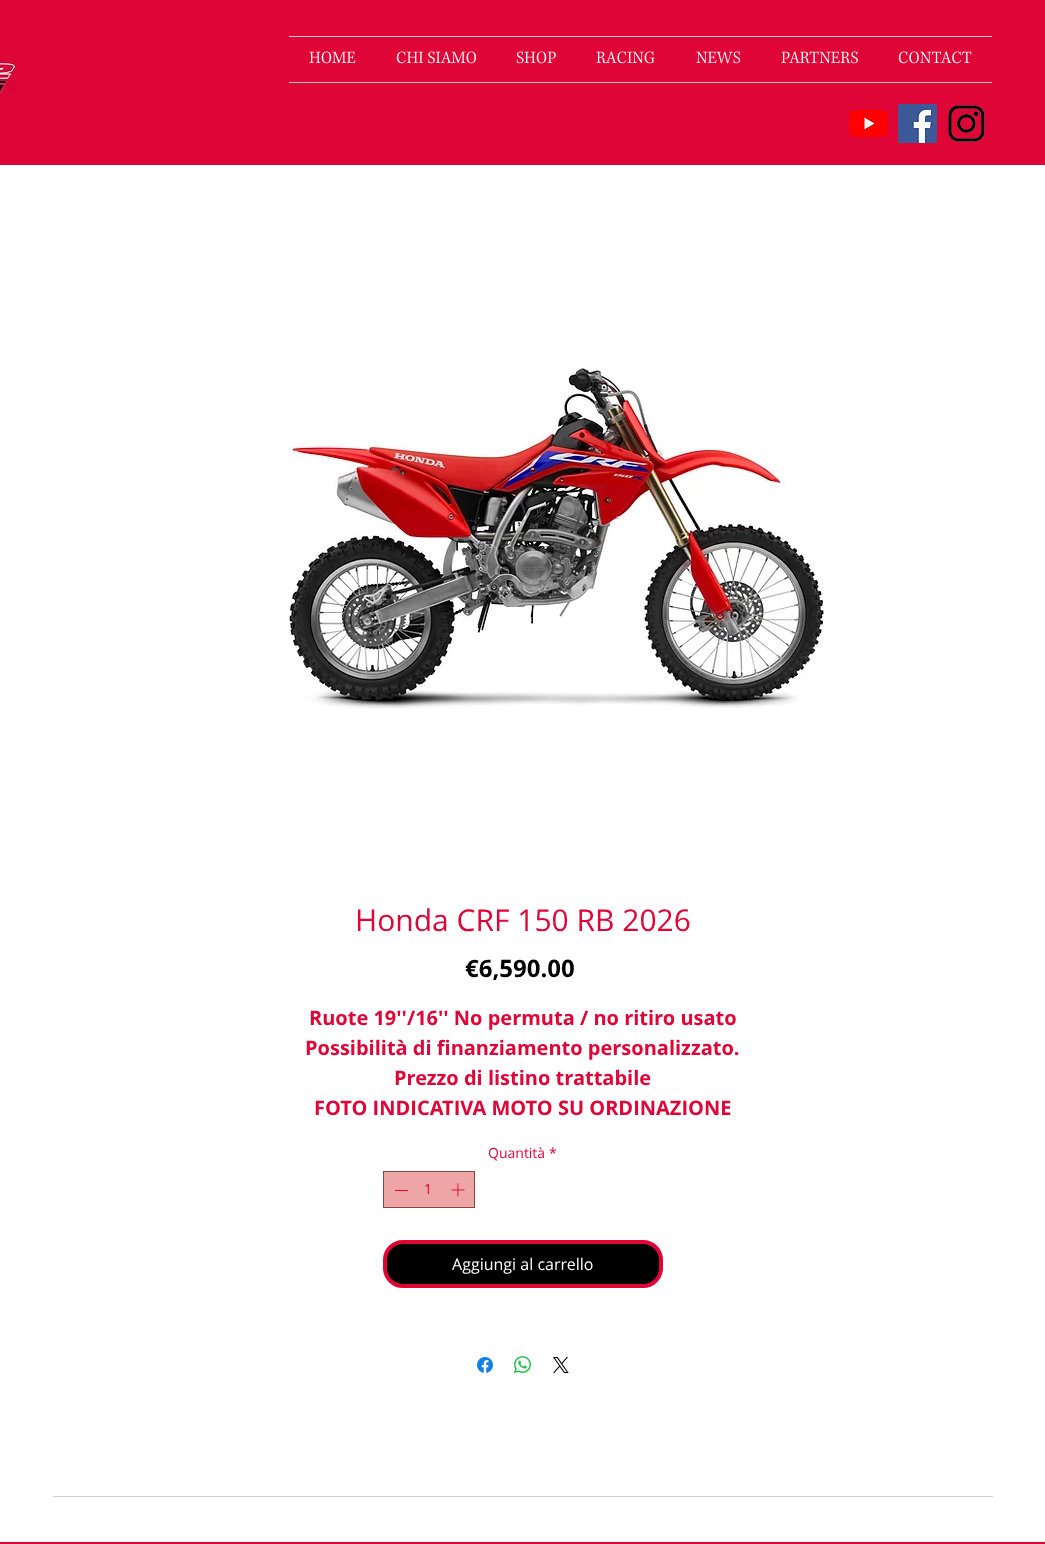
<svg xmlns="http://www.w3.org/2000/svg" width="1045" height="1544">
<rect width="100%" height="100%" fill="#fff"/>
<rect width="1045" height="165" fill="#df0537"/>
<image x="0" y="56" width="17" height="40" href="media/1.png"/>
<rect x="289" y="36" width="703" height="1" fill="#cacaca"/>
<rect x="289" y="82" width="703" height="1" fill="#cacaca"/>
<image x="309" y="51" width="47" height="13" href="media/2.png"/>
<image x="396" y="51" width="81" height="13" href="media/3.png"/>
<image x="516" y="51" width="40" height="13" href="media/4.png"/>
<image x="596" y="51" width="59" height="13" href="media/5.png"/>
<image x="696" y="51" width="45" height="13" href="media/6.png"/>
<image x="781" y="51" width="77" height="13" href="media/7.png"/>
<image x="898" y="51" width="74" height="13" href="media/8.png"/>
<image x="849" y="109" width="39" height="29" href="media/9.png"/>
<image x="898" y="104" width="39" height="39" href="media/10.png"/>
<image x="948" y="105" width="37" height="37" href="media/11.png"/>
<image x="287" y="367" width="537" height="342" href="media/12.png"/>
<text x="355" y="931" style="font-family:Open Sans;font-size:30px;fill:#df0537">Honda CRF 150 RB 2026</text>
<text x="465" y="977" style="font-family:Open Sans;font-size:24px;font-weight:bold;fill:#000">€6,590.00</text>
<text x="309" y="1025" style="font-family:Open Sans;font-size:20px;font-weight:bold;fill:#df0537">Ruote 19''/16'' No permuta / no ritiro usato</text>
<text x="305" y="1055" style="font-family:Open Sans;font-size:20px;font-weight:bold;fill:#df0537">Possibilità di finanziamento personalizzato.</text>
<text x="394" y="1085" style="font-family:Open Sans;font-size:20px;font-weight:bold;fill:#df0537">Prezzo di listino trattabile</text>
<text x="314" y="1115" style="font-family:Open Sans;font-size:20px;font-weight:bold;fill:#df0537">FOTO INDICATIVA MOTO SU ORDINAZIONE</text>
<text x="488" y="1158" style="font-family:Open Sans;font-size:14px;fill:#df0537">Quantità</text>
<text x="549" y="1158" style="font-family:Open Sans;font-size:14px;fill:#df0537">*</text>
<rect x="383.5" y="1171.5" width="91" height="36" fill="#eda5a6" stroke="#884546"/>
<rect x="395" y="1190" width="13" height="1" fill="#df0537"/>
<text x="424" y="1194" style="font-family:Open Sans;font-size:14px;fill:#df0537">1</text>
<image x="451" y="1183" width="14" height="14" href="media/13.png"/>
<rect x="385" y="1242" width="276" height="44" rx="18" fill="#000" stroke="#df0537" stroke-width="4"/>
<text x="452" y="1270" style="font-family:Open Sans;font-size:16px;fill:#fff">Aggiungi al carrello</text>
<image x="477" y="1357" width="16" height="16" href="media/14.png"/>
<image x="514" y="1356" width="17" height="17" href="media/15.png"/>
<image x="553" y="1357" width="16" height="16" href="media/16.png"/>
<rect x="53" y="1496" width="940" height="1" fill="#dacdcd"/>
<rect y="1542" width="1045" height="2" fill="#df0537"/>
</svg>
